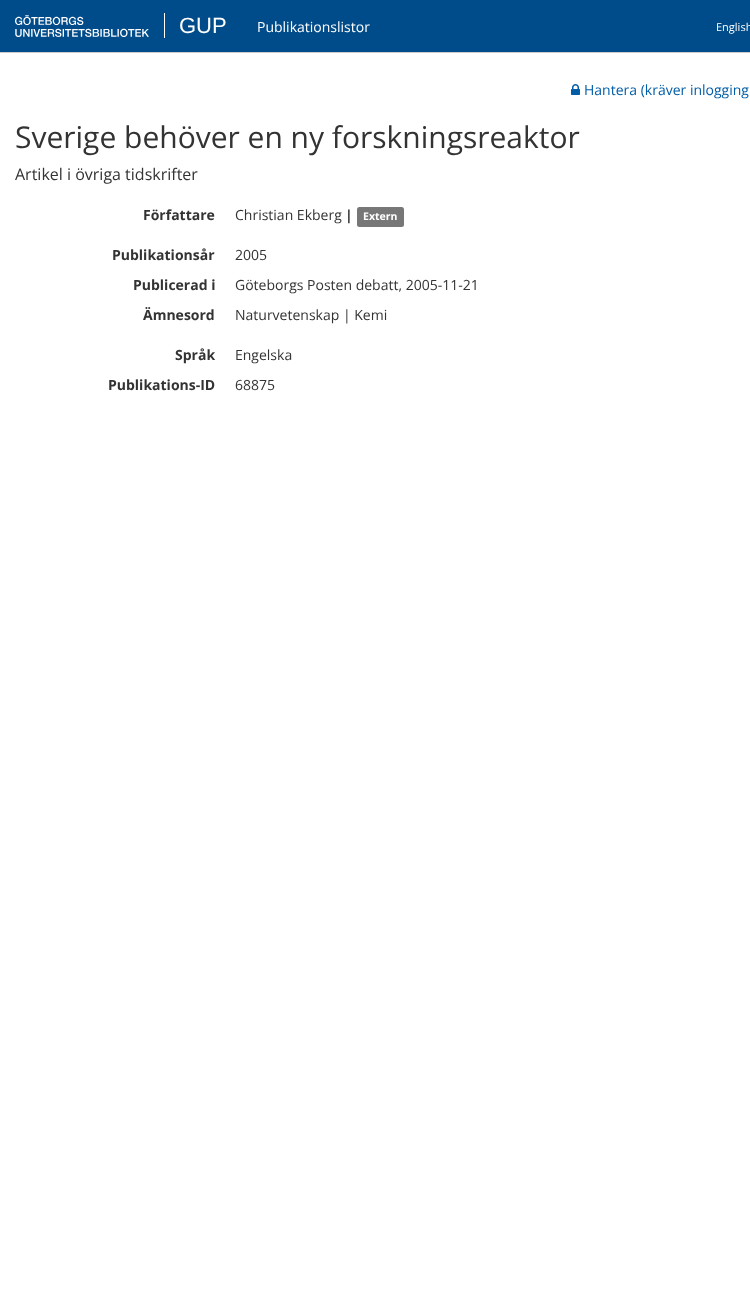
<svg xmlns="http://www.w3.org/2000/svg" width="750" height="1307">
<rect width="100%" height="100%" fill="#fff"/>
<rect width="750" height="52" fill="#004b89"/>
<rect y="52" width="750" height="1" fill="#ccc"/>
<image x="15" y="15" width="134" height="22" href="media/1.png"/>
<rect x="164" y="13" width="1" height="25" fill="#fff"/>
<text x="179" y="33" style="font-family:Liberation Sans;font-size:22px;fill:#fff">GUP</text>
<text x="257" y="32" style="font-family:Open Sans;font-size:14px;fill:#fff">Publikationslistor</text>
<text x="716" y="31" style="font-family:Open Sans;font-size:11px;fill:#fff">English</text>
<image x="571" y="84" width="9" height="11" href="media/2.png"/>
<text x="584" y="95" style="font-family:Open Sans;font-size:14px;fill:#025da6">Hantera (kräver inlogging</text>
<text x="15" y="148" style="font-family:Open Sans;font-size:30px;fill:#333">Sverige behöver en ny forskningsreaktor</text>
<text x="15" y="180" style="font-family:Open Sans;font-size:16px;fill:#333">Artikel i övriga tidskrifter</text>
<text x="143" y="220" style="font-family:Open Sans;font-size:14px;font-weight:bold;fill:#333">Författare</text>
<text x="235" y="220" style="font-family:Open Sans;font-size:14px;fill:#333">Christian Ekberg</text>
<text x="345" y="220" style="font-family:Open Sans;font-size:14px;font-weight:bold;fill:#333">|</text>
<rect x="357" y="207" width="47" height="20" rx="2.5" fill="#777"/>
<text x="363" y="220" style="font-family:Open Sans;font-size:10.5px;font-weight:bold;fill:#fff">Extern</text>
<text x="112" y="260" style="font-family:Open Sans;font-size:14px;font-weight:bold;fill:#333">Publikationsår</text>
<text x="235" y="260" style="font-family:Open Sans;font-size:14px;fill:#333">2005</text>
<text x="133" y="290" style="font-family:Open Sans;font-size:14px;font-weight:bold;fill:#333">Publicerad i</text>
<text x="235" y="290" style="font-family:Open Sans;font-size:14px;fill:#333">Göteborgs Posten debatt, 2005-11-21</text>
<text x="143" y="320" style="font-family:Open Sans;font-size:14px;font-weight:bold;fill:#333">Ämnesord</text>
<text x="235" y="320" style="font-family:Open Sans;font-size:14px;fill:#333">Naturvetenskap | Kemi</text>
<text x="175" y="360" style="font-family:Open Sans;font-size:14px;font-weight:bold;fill:#333">Språk</text>
<text x="235" y="360" style="font-family:Open Sans;font-size:14px;fill:#333">Engelska</text>
<text x="108" y="390" style="font-family:Open Sans;font-size:14px;font-weight:bold;fill:#333">Publikations-ID</text>
<text x="235" y="390" style="font-family:Open Sans;font-size:14px;fill:#333">68875</text>
</svg>
